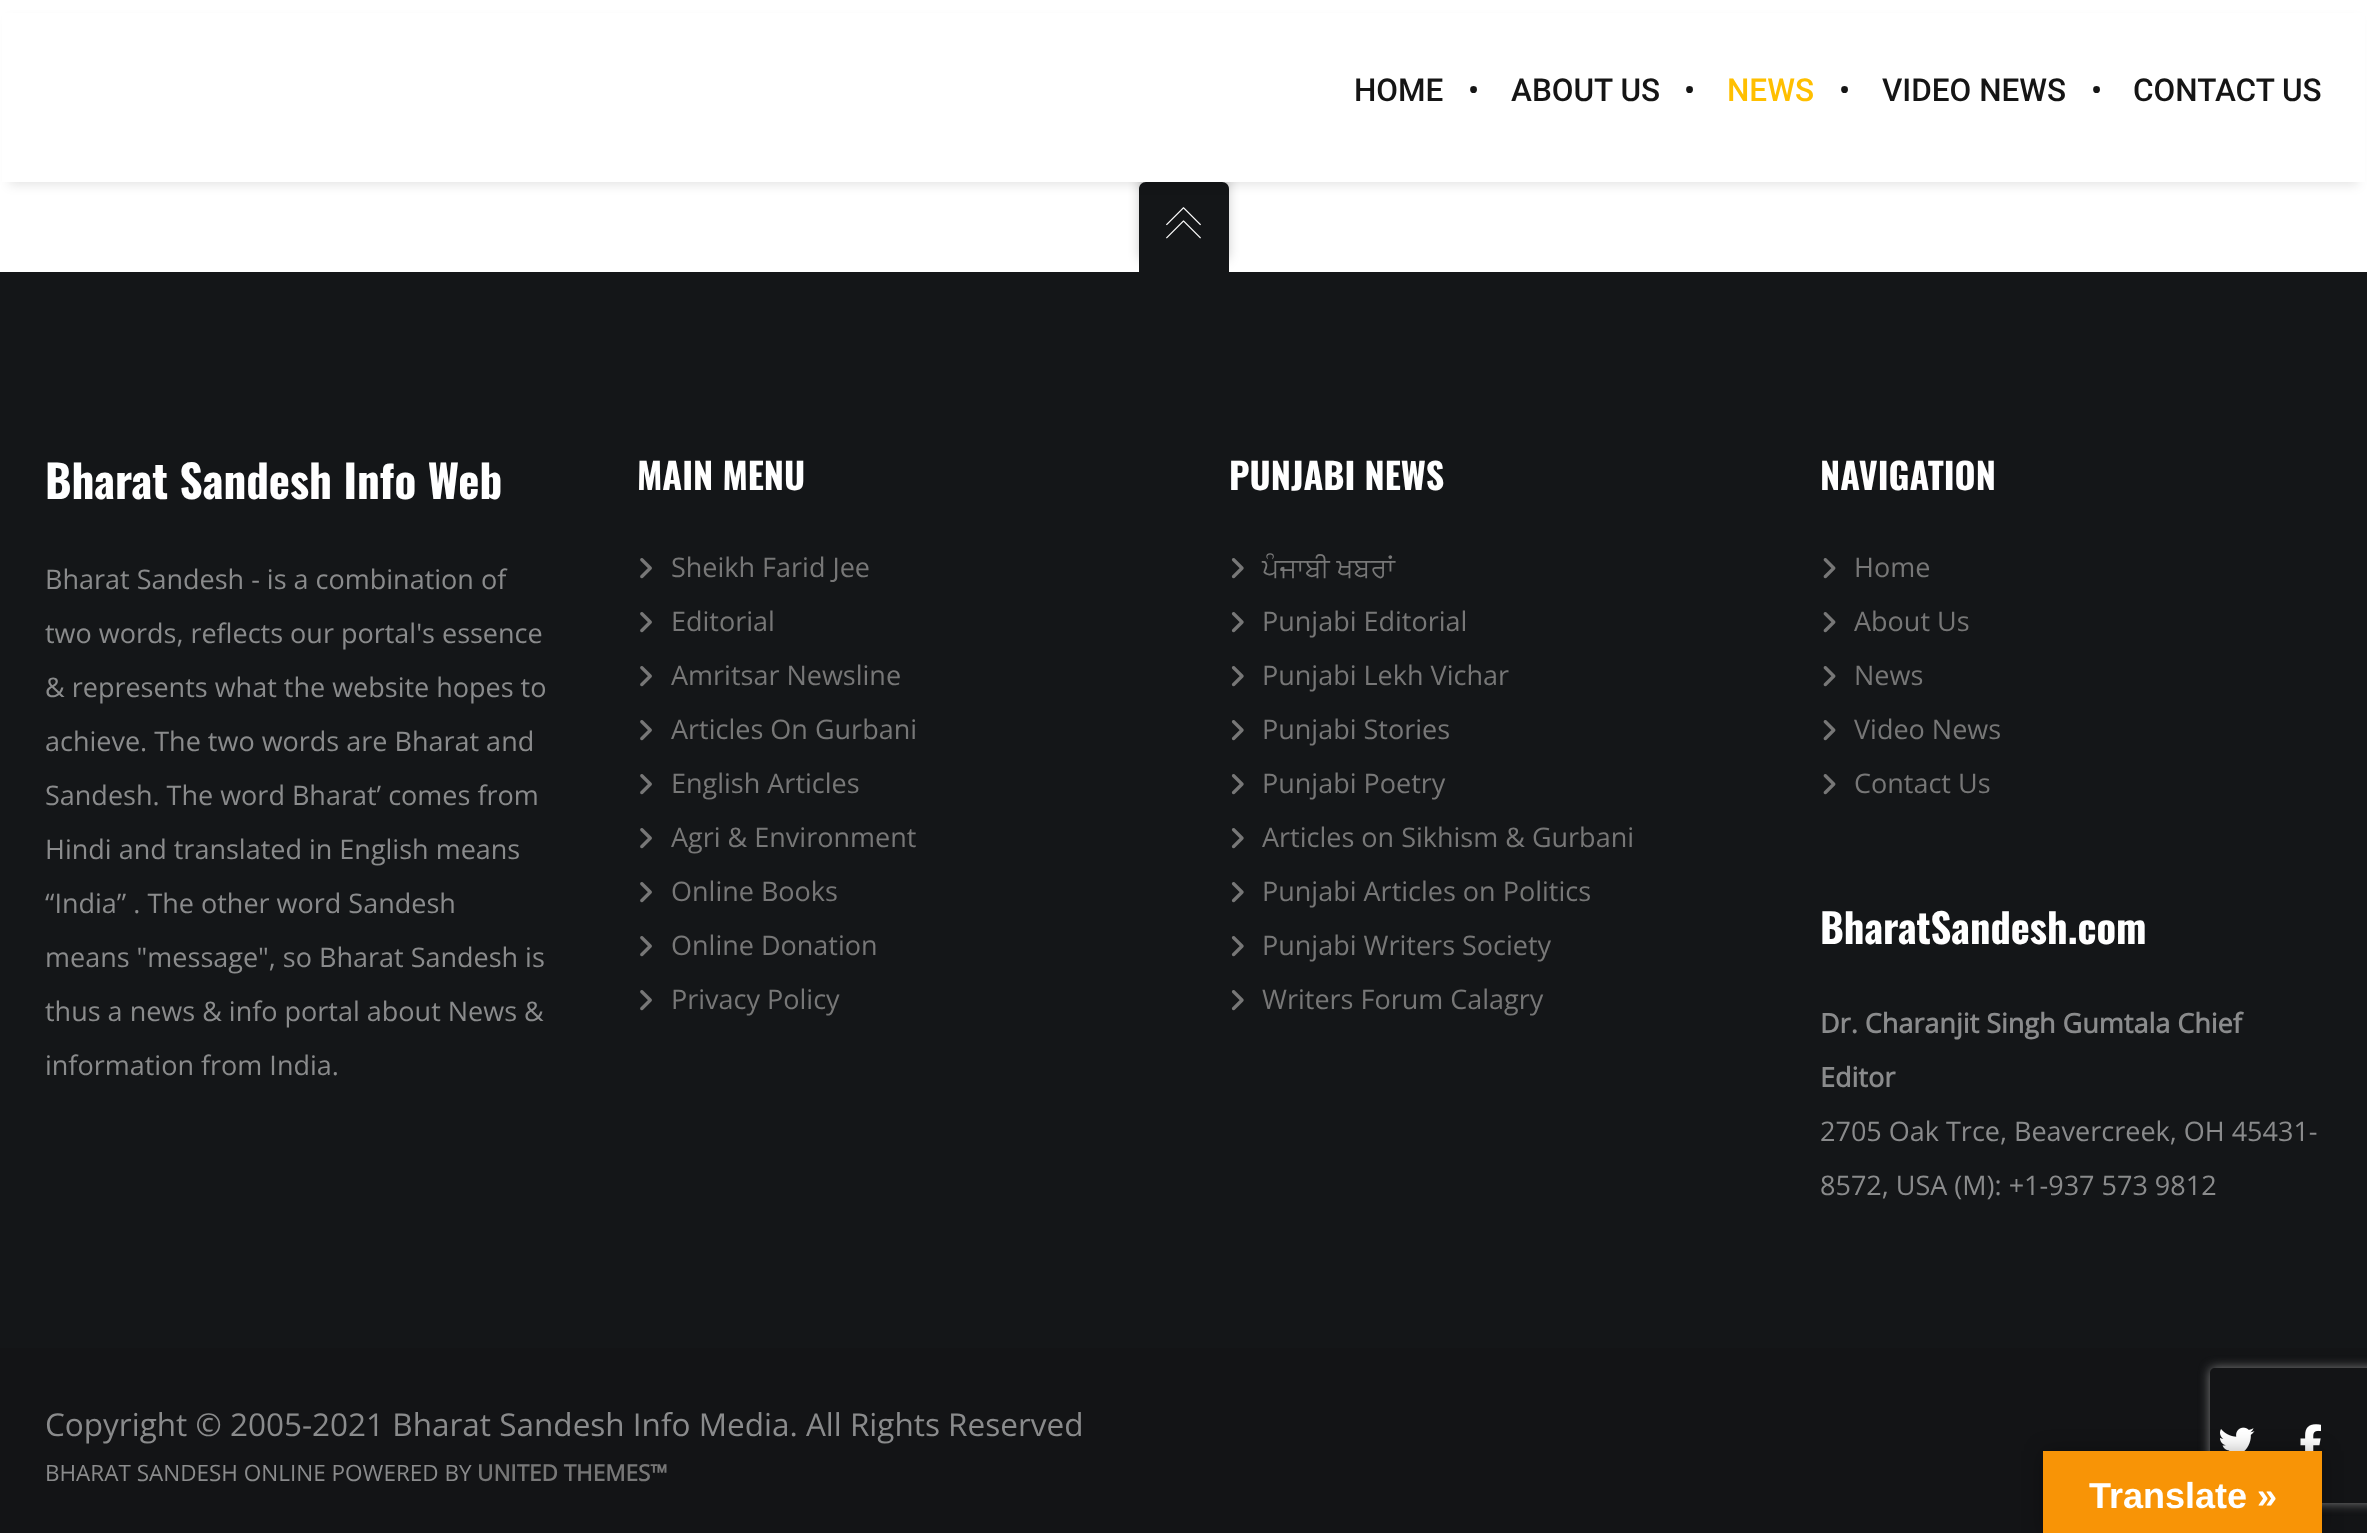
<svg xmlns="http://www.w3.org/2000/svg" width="2367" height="1533">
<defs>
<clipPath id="clip1"><path d="M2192 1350h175v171h-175zm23 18h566c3 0 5 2 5 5v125c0 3-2 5-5 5h-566c-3 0-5-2-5-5v-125c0-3 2-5 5-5z" clip-rule="evenodd"/></clipPath>
</defs>
<rect width="100%" height="100%" fill="#fff"/>
<rect y="272" width="2367" height="1076" fill="#141618"/>
<rect x="1139" y="171" width="90" height="90" rx="7" fill="#00000033" filter="blur(5.5px)"/>
<path d="M1146 182h76c4 0 7 3 7 7v83h-90v-83c0-4 3-7 7-7z" fill="#141618"/>
<rect x="9" y="20" width="2349" height="165" fill="#0000001a" filter="blur(5.5px)"/>
<rect x="2" y="13" width="2363" height="169" fill="#fff"/>
<text x="1354" y="101" style="font-family:Roboto;font-size:31.5px;font-weight:500;fill:#151515">HOME</text>
<text x="1468" y="101" style="font-family:Roboto;font-size:31.5px;font-weight:500;fill:#151515">•</text>
<text x="1511" y="101" style="font-family:Roboto;font-size:31.5px;font-weight:500;fill:#151515">ABOUT US</text>
<text x="1684" y="101" style="font-family:Roboto;font-size:31.5px;font-weight:500;fill:#151515">•</text>
<text x="1727" y="101" style="font-family:Roboto;font-size:31.5px;font-weight:500;fill:#ffbf00">NEWS</text>
<text x="1839" y="101" style="font-family:Roboto;font-size:31.5px;font-weight:500;fill:#151515">•</text>
<text x="1882" y="101" style="font-family:Roboto;font-size:31.5px;font-weight:500;fill:#151515">VIDEO NEWS</text>
<text x="2091" y="101" style="font-family:Roboto;font-size:31.5px;font-weight:500;fill:#151515">•</text>
<text x="2133" y="101" style="font-family:Roboto;font-size:31.5px;font-weight:500;fill:#151515">CONTACT US</text>
<image x="1166" y="207" width="35" height="32" href="media/1.png"/>
<text x="45" y="499" style="font-family:Oswald;font-size:45px;font-weight:bold;fill:#fff">Bharat Sandesh Info Web</text>
<text x="45" y="589" style="font-family:Open Sans;font-size:27px;fill:#8a8b8c">Bharat Sandesh - is a combination of</text>
<text x="45" y="643" style="font-family:Open Sans;font-size:27px;fill:#8a8b8c">two words, reflects our portal's essence</text>
<text x="45" y="697" style="font-family:Open Sans;font-size:27px;fill:#8a8b8c">&amp; represents what the website hopes to</text>
<text x="45" y="751" style="font-family:Open Sans;font-size:27px;fill:#8a8b8c">achieve. The two words are Bharat and</text>
<text x="45" y="805" style="font-family:Open Sans;font-size:27px;fill:#8a8b8c">Sandesh. The word Bharat’ comes from</text>
<text x="45" y="859" style="font-family:Open Sans;font-size:27px;fill:#8a8b8c">Hindi and translated in English means</text>
<text x="45" y="913" style="font-family:Open Sans;font-size:27px;fill:#8a8b8c">“India” . The other word Sandesh</text>
<text x="45" y="967" style="font-family:Open Sans;font-size:27px;fill:#8a8b8c">means "message", so Bharat Sandesh is</text>
<text x="45" y="1021" style="font-family:Open Sans;font-size:27px;fill:#8a8b8c">thus a news &amp; info portal about News &amp;</text>
<text x="45" y="1075" style="font-family:Open Sans;font-size:27px;fill:#8a8b8c">information from India.</text>
<text x="637" y="490" style="font-family:Oswald;font-size:36px;font-weight:bold;fill:#fff">MAIN MENU</text>
<image x="640" y="558" width="12" height="21" href="media/2.png"/>
<text x="671" y="577" style="font-family:Open Sans;font-size:27px;fill:#777">Sheikh Farid Jee</text>
<image x="640" y="612" width="12" height="21" href="media/2.png"/>
<text x="671" y="631" style="font-family:Open Sans;font-size:27px;fill:#777">Editorial</text>
<image x="640" y="666" width="12" height="21" href="media/2.png"/>
<text x="671" y="685" style="font-family:Open Sans;font-size:27px;fill:#777">Amritsar Newsline</text>
<image x="640" y="720" width="12" height="21" href="media/2.png"/>
<text x="671" y="739" style="font-family:Open Sans;font-size:27px;fill:#777">Articles On Gurbani</text>
<image x="640" y="774" width="12" height="21" href="media/2.png"/>
<text x="671" y="793" style="font-family:Open Sans;font-size:27px;fill:#777">English Articles</text>
<image x="640" y="828" width="12" height="21" href="media/2.png"/>
<text x="671" y="847" style="font-family:Open Sans;font-size:27px;fill:#777">Agri &amp; Environment</text>
<image x="640" y="882" width="12" height="21" href="media/2.png"/>
<text x="671" y="901" style="font-family:Open Sans;font-size:27px;fill:#777">Online Books</text>
<image x="640" y="936" width="12" height="21" href="media/2.png"/>
<text x="671" y="955" style="font-family:Open Sans;font-size:27px;fill:#777">Online Donation</text>
<image x="640" y="990" width="12" height="21" href="media/2.png"/>
<text x="671" y="1009" style="font-family:Open Sans;font-size:27px;fill:#777">Privacy Policy</text>
<text x="1229" y="490" style="font-family:Oswald;font-size:36px;font-weight:bold;fill:#fff">PUNJABI NEWS</text>
<image x="1231" y="558" width="13" height="21" href="media/3.png"/>
<text x="1262" y="577" style="font-family:FreeSans;font-size:27px;fill:#777">ਪੰਜਾਬੀ ਖਬਰਾਂ</text>
<image x="1231" y="612" width="13" height="21" href="media/3.png"/>
<text x="1262" y="631" style="font-family:Open Sans;font-size:27px;fill:#777">Punjabi Editorial</text>
<image x="1231" y="666" width="13" height="21" href="media/3.png"/>
<text x="1262" y="685" style="font-family:Open Sans;font-size:27px;fill:#777">Punjabi Lekh Vichar</text>
<image x="1231" y="720" width="13" height="21" href="media/3.png"/>
<text x="1262" y="739" style="font-family:Open Sans;font-size:27px;fill:#777">Punjabi Stories</text>
<image x="1231" y="774" width="13" height="21" href="media/3.png"/>
<text x="1262" y="793" style="font-family:Open Sans;font-size:27px;fill:#777">Punjabi Poetry</text>
<image x="1231" y="828" width="13" height="21" href="media/3.png"/>
<text x="1262" y="847" style="font-family:Open Sans;font-size:27px;fill:#777">Articles on Sikhism &amp; Gurbani</text>
<image x="1231" y="882" width="13" height="21" href="media/3.png"/>
<text x="1262" y="901" style="font-family:Open Sans;font-size:27px;fill:#777">Punjabi Articles on Politics</text>
<image x="1231" y="936" width="13" height="21" href="media/3.png"/>
<text x="1262" y="955" style="font-family:Open Sans;font-size:27px;fill:#777">Punjabi Writers Society</text>
<image x="1231" y="990" width="13" height="21" href="media/3.png"/>
<text x="1262" y="1009" style="font-family:Open Sans;font-size:27px;fill:#777">Writers Forum Calagry</text>
<text x="1820" y="490" style="font-family:Oswald;font-size:36px;font-weight:bold;fill:#fff">NAVIGATION</text>
<image x="1823" y="558" width="13" height="21" href="media/4.png"/>
<text x="1854" y="577" style="font-family:Open Sans;font-size:27px;fill:#777">Home</text>
<image x="1823" y="612" width="13" height="21" href="media/4.png"/>
<text x="1854" y="631" style="font-family:Open Sans;font-size:27px;fill:#777">About Us</text>
<image x="1823" y="666" width="13" height="21" href="media/4.png"/>
<text x="1854" y="685" style="font-family:Open Sans;font-size:27px;fill:#777">News</text>
<image x="1823" y="720" width="13" height="21" href="media/4.png"/>
<text x="1854" y="739" style="font-family:Open Sans;font-size:27px;fill:#777">Video News</text>
<image x="1823" y="774" width="13" height="21" href="media/4.png"/>
<text x="1854" y="793" style="font-family:Open Sans;font-size:27px;fill:#777">Contact Us</text>
<text x="1820" y="944" style="font-family:Oswald;font-size:40.5px;font-weight:bold;fill:#fff">BharatSandesh.com</text>
<text x="1820" y="1033" style="font-family:Open Sans;font-size:27px;font-weight:bold;fill:#8a8b8c">Dr. Charanjit Singh Gumtala Chief</text>
<text x="1820" y="1087" style="font-family:Open Sans;font-size:27px;font-weight:bold;fill:#8a8b8c">Editor</text>
<text x="1820" y="1141" style="font-family:Open Sans;font-size:27px;fill:#8a8b8c">2705 Oak Trce, Beavercreek, OH 45431-</text>
<text x="1820" y="1195" style="font-family:Open Sans;font-size:27px;fill:#8a8b8c">8572, USA (M): +1-937 573 9812</text>
<rect y="1348" width="2367" height="185" fill="#131416"/>
<text x="45" y="1436" style="font-family:Open Sans;font-size:31.5px;fill:#8a8b8c">Copyright © 2005-2021 Bharat Sandesh Info Media. All Rights Reserved</text>
<text x="45" y="1481" style="font-family:Open Sans;font-size:22.5px;fill:#8a8b8c">BHARAT SANDESH ONLINE POWERED BY</text>
<text x="477" y="1481" style="font-family:Open Sans;font-size:22.5px;font-weight:bold;fill:#777">UNITED THEMES™</text>
<image x="2220" y="1427" width="35" height="24" href="media/5.png"/>
<image x="2300" y="1424" width="21" height="27" href="media/6.png"/>
<rect x="2043" y="1451" width="279" height="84" fill="#0000004d" filter="blur(10px)"/>
<g clip-path="url(#clip1)">
<rect x="2210" y="1368" width="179" height="135" rx="5" fill="#808080" filter="blur(5.5px)"/>
</g>
<rect x="2043" y="1451" width="279" height="82" fill="#f89406"/>
<text x="2089" y="1508" style="font-family:Liberation Sans;font-size:36px;font-weight:bold;fill:#fff">Translate »</text>
</svg>
